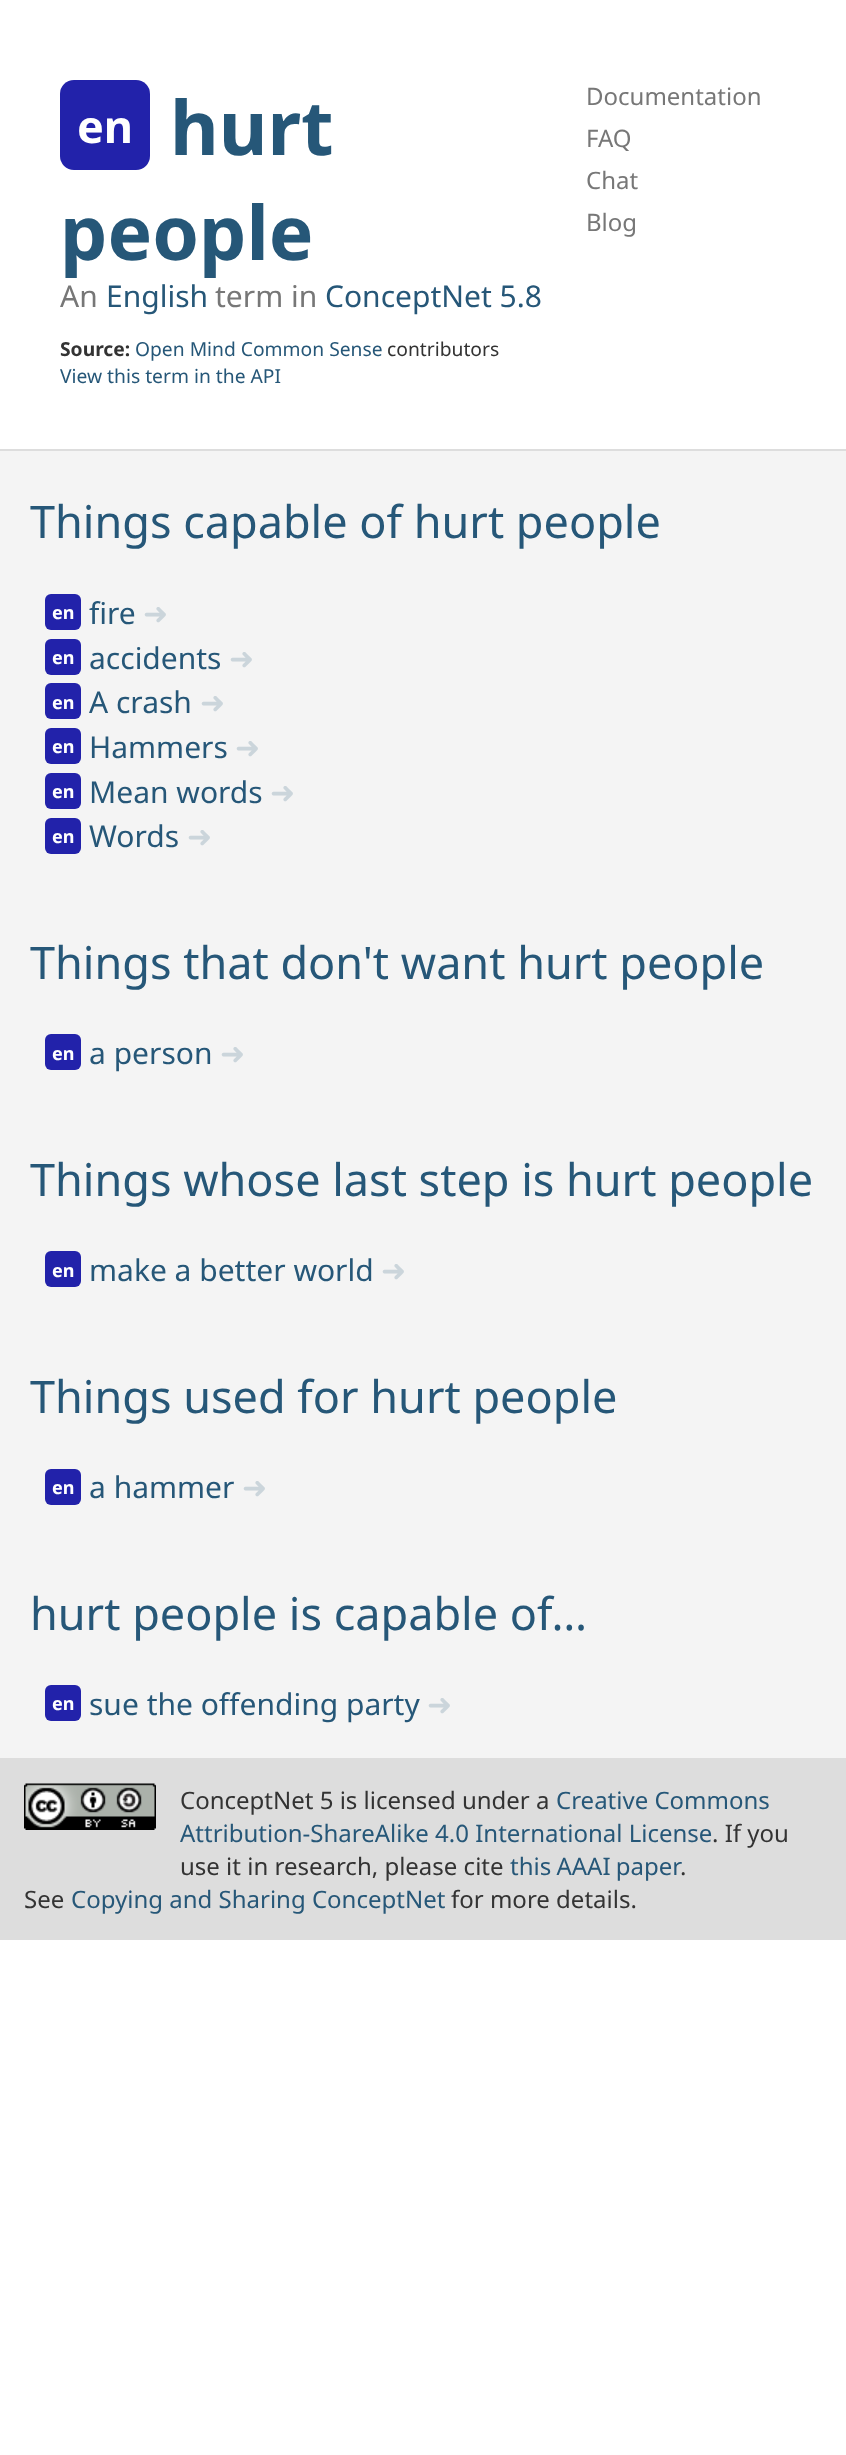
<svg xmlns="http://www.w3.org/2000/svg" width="846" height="2455">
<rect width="100%" height="100%" fill="#fff"/>
<rect x="60" y="80" width="90" height="90" rx="14" fill="#22a"/>
<text x="77" y="143" style="font-family:Noto Sans;font-size:45px;font-weight:bold;fill:#fff">en</text>
<text x="170" y="155" style="font-family:Noto Sans;font-size:75px;font-weight:bold;fill:#265778">hurt</text>
<text x="60" y="260" style="font-family:Noto Sans;font-size:75px;font-weight:bold;fill:#265778">people</text>
<text x="60" y="307" style="font-family:Noto Sans;font-size:30px;fill:#777">An</text>
<text x="106" y="307" style="font-family:Noto Sans;font-size:30px;fill:#265778">English</text>
<text x="215" y="307" style="font-family:Noto Sans;font-size:30px;fill:#777">term in</text>
<text x="325" y="307" style="font-family:Noto Sans;font-size:30px;fill:#265778">ConceptNet 5.8</text>
<text x="60" y="356" style="font-family:Noto Sans;font-size:19.25px;font-weight:bold;fill:#333">Source:</text>
<text x="135" y="356" style="font-family:Noto Sans;font-size:19.25px;fill:#265778">Open Mind Common Sense</text>
<text x="387" y="356" style="font-family:Noto Sans;font-size:19.25px;fill:#333">contributors</text>
<text x="60" y="383" style="font-family:Noto Sans;font-size:19.25px;fill:#265778">View this term in the API</text>
<text x="586" y="105" style="font-family:Noto Sans;font-size:24px;fill:#777">Documentation</text>
<text x="586" y="147" style="font-family:Noto Sans;font-size:24px;fill:#777">FAQ</text>
<text x="586" y="189" style="font-family:Noto Sans;font-size:24px;fill:#777">Chat</text>
<text x="586" y="231" style="font-family:Noto Sans;font-size:24px;fill:#777">Blog</text>
<rect y="451" width="846" height="1307" fill="#f4f4f4"/>
<rect y="449" width="846" height="2" fill="#ddd"/>
<rect y="1758" width="846" height="182" fill="#ddd"/>
<text x="30" y="538" style="font-family:Noto Sans;font-size:45px;fill:#265778">Things capable of hurt people</text>
<rect x="45" y="594" width="36" height="36" rx="6" fill="#22a"/>
<text x="52" y="619" style="font-family:Noto Sans;font-size:18px;font-weight:bold;fill:#fff">en</text>
<text x="89" y="624" style="font-family:Noto Sans;font-size:30px;fill:#265778">fire</text>
<text x="143" y="624" style="font-family:DejaVu Sans;font-size:30px;fill:#cbd5db">➜</text>
<rect x="45" y="639" width="36" height="36" rx="6" fill="#22a"/>
<text x="52" y="664" style="font-family:Noto Sans;font-size:18px;font-weight:bold;fill:#fff">en</text>
<text x="89" y="669" style="font-family:Noto Sans;font-size:30px;fill:#265778">accidents</text>
<text x="229" y="669" style="font-family:DejaVu Sans;font-size:30px;fill:#cbd5db">➜</text>
<rect x="45" y="683" width="36" height="36" rx="6" fill="#22a"/>
<text x="52" y="709" style="font-family:Noto Sans;font-size:18px;font-weight:bold;fill:#fff">en</text>
<text x="89" y="713" style="font-family:Noto Sans;font-size:30px;fill:#265778">A crash</text>
<text x="200" y="713" style="font-family:DejaVu Sans;font-size:30px;fill:#cbd5db">➜</text>
<rect x="45" y="728" width="36" height="36" rx="6" fill="#22a"/>
<text x="52" y="753" style="font-family:Noto Sans;font-size:18px;font-weight:bold;fill:#fff">en</text>
<text x="89" y="758" style="font-family:Noto Sans;font-size:30px;fill:#265778">Hammers</text>
<text x="235" y="758" style="font-family:DejaVu Sans;font-size:30px;fill:#cbd5db">➜</text>
<rect x="45" y="773" width="36" height="36" rx="6" fill="#22a"/>
<text x="52" y="798" style="font-family:Noto Sans;font-size:18px;font-weight:bold;fill:#fff">en</text>
<text x="89" y="803" style="font-family:Noto Sans;font-size:30px;fill:#265778">Mean words</text>
<text x="270" y="803" style="font-family:DejaVu Sans;font-size:30px;fill:#cbd5db">➜</text>
<rect x="45" y="818" width="36" height="36" rx="6" fill="#22a"/>
<text x="52" y="843" style="font-family:Noto Sans;font-size:18px;font-weight:bold;fill:#fff">en</text>
<text x="89" y="847" style="font-family:Noto Sans;font-size:30px;fill:#265778">Words</text>
<text x="187" y="847" style="font-family:DejaVu Sans;font-size:30px;fill:#cbd5db">➜</text>
<text x="30" y="979" style="font-family:Noto Sans;font-size:45px;fill:#265778">Things that don't want hurt people</text>
<rect x="45" y="1034" width="36" height="36" rx="6" fill="#22a"/>
<text x="52" y="1060" style="font-family:Noto Sans;font-size:18px;font-weight:bold;fill:#fff">en</text>
<text x="89" y="1064" style="font-family:Noto Sans;font-size:30px;fill:#265778">a person</text>
<text x="220" y="1064" style="font-family:DejaVu Sans;font-size:30px;fill:#cbd5db">➜</text>
<text x="30" y="1196" style="font-family:Noto Sans;font-size:45px;fill:#265778">Things whose last step is hurt people</text>
<rect x="45" y="1251" width="36" height="36" rx="6" fill="#22a"/>
<text x="52" y="1277" style="font-family:Noto Sans;font-size:18px;font-weight:bold;fill:#fff">en</text>
<text x="89" y="1281" style="font-family:Noto Sans;font-size:30px;fill:#265778">make a better world</text>
<text x="381" y="1281" style="font-family:DejaVu Sans;font-size:30px;fill:#cbd5db">➜</text>
<text x="30" y="1413" style="font-family:Noto Sans;font-size:45px;fill:#265778">Things used for hurt people</text>
<rect x="45" y="1469" width="36" height="36" rx="6" fill="#22a"/>
<text x="52" y="1494" style="font-family:Noto Sans;font-size:18px;font-weight:bold;fill:#fff">en</text>
<text x="89" y="1498" style="font-family:Noto Sans;font-size:30px;fill:#265778">a hammer</text>
<text x="242" y="1498" style="font-family:DejaVu Sans;font-size:30px;fill:#cbd5db">➜</text>
<text x="30" y="1630" style="font-family:Noto Sans;font-size:45px;fill:#265778">hurt people is capable of…</text>
<rect x="45" y="1685" width="36" height="36" rx="6" fill="#22a"/>
<text x="52" y="1710" style="font-family:Noto Sans;font-size:18px;font-weight:bold;fill:#fff">en</text>
<text x="89" y="1715" style="font-family:Noto Sans;font-size:30px;fill:#265778">sue the offending party</text>
<text x="427" y="1715" style="font-family:DejaVu Sans;font-size:30px;fill:#cbd5db">➜</text>
<image x="24" y="1783" width="132" height="47" href="media/1.png"/>
<text x="180" y="1809" style="font-family:Noto Sans;font-size:24px;fill:#333">ConceptNet 5 is licensed under a</text>
<text x="556" y="1809" style="font-family:Noto Sans;font-size:24px;fill:#265778">Creative Commons</text>
<text x="180" y="1842" style="font-family:Noto Sans;font-size:24px;fill:#265778">Attribution-ShareAlike 4.0 International License</text>
<text x="712" y="1842" style="font-family:Noto Sans;font-size:24px;fill:#333">. If you</text>
<text x="180" y="1875" style="font-family:Noto Sans;font-size:24px;fill:#333">use it in research, please cite</text>
<text x="510" y="1875" word-spacing="-1" style="font-family:Noto Sans;font-size:24px;fill:#265778">this AAAI paper</text>
<text x="680" y="1875" style="font-family:Noto Sans;font-size:24px;fill:#333">.</text>
<text x="24" y="1908" style="font-family:Noto Sans;font-size:24px;fill:#333">See</text>
<text x="71" y="1908" style="font-family:Noto Sans;font-size:24px;fill:#265778">Copying and Sharing ConceptNet</text>
<text x="451" y="1908" style="font-family:Noto Sans;font-size:24px;fill:#333">for more details.</text>
</svg>
